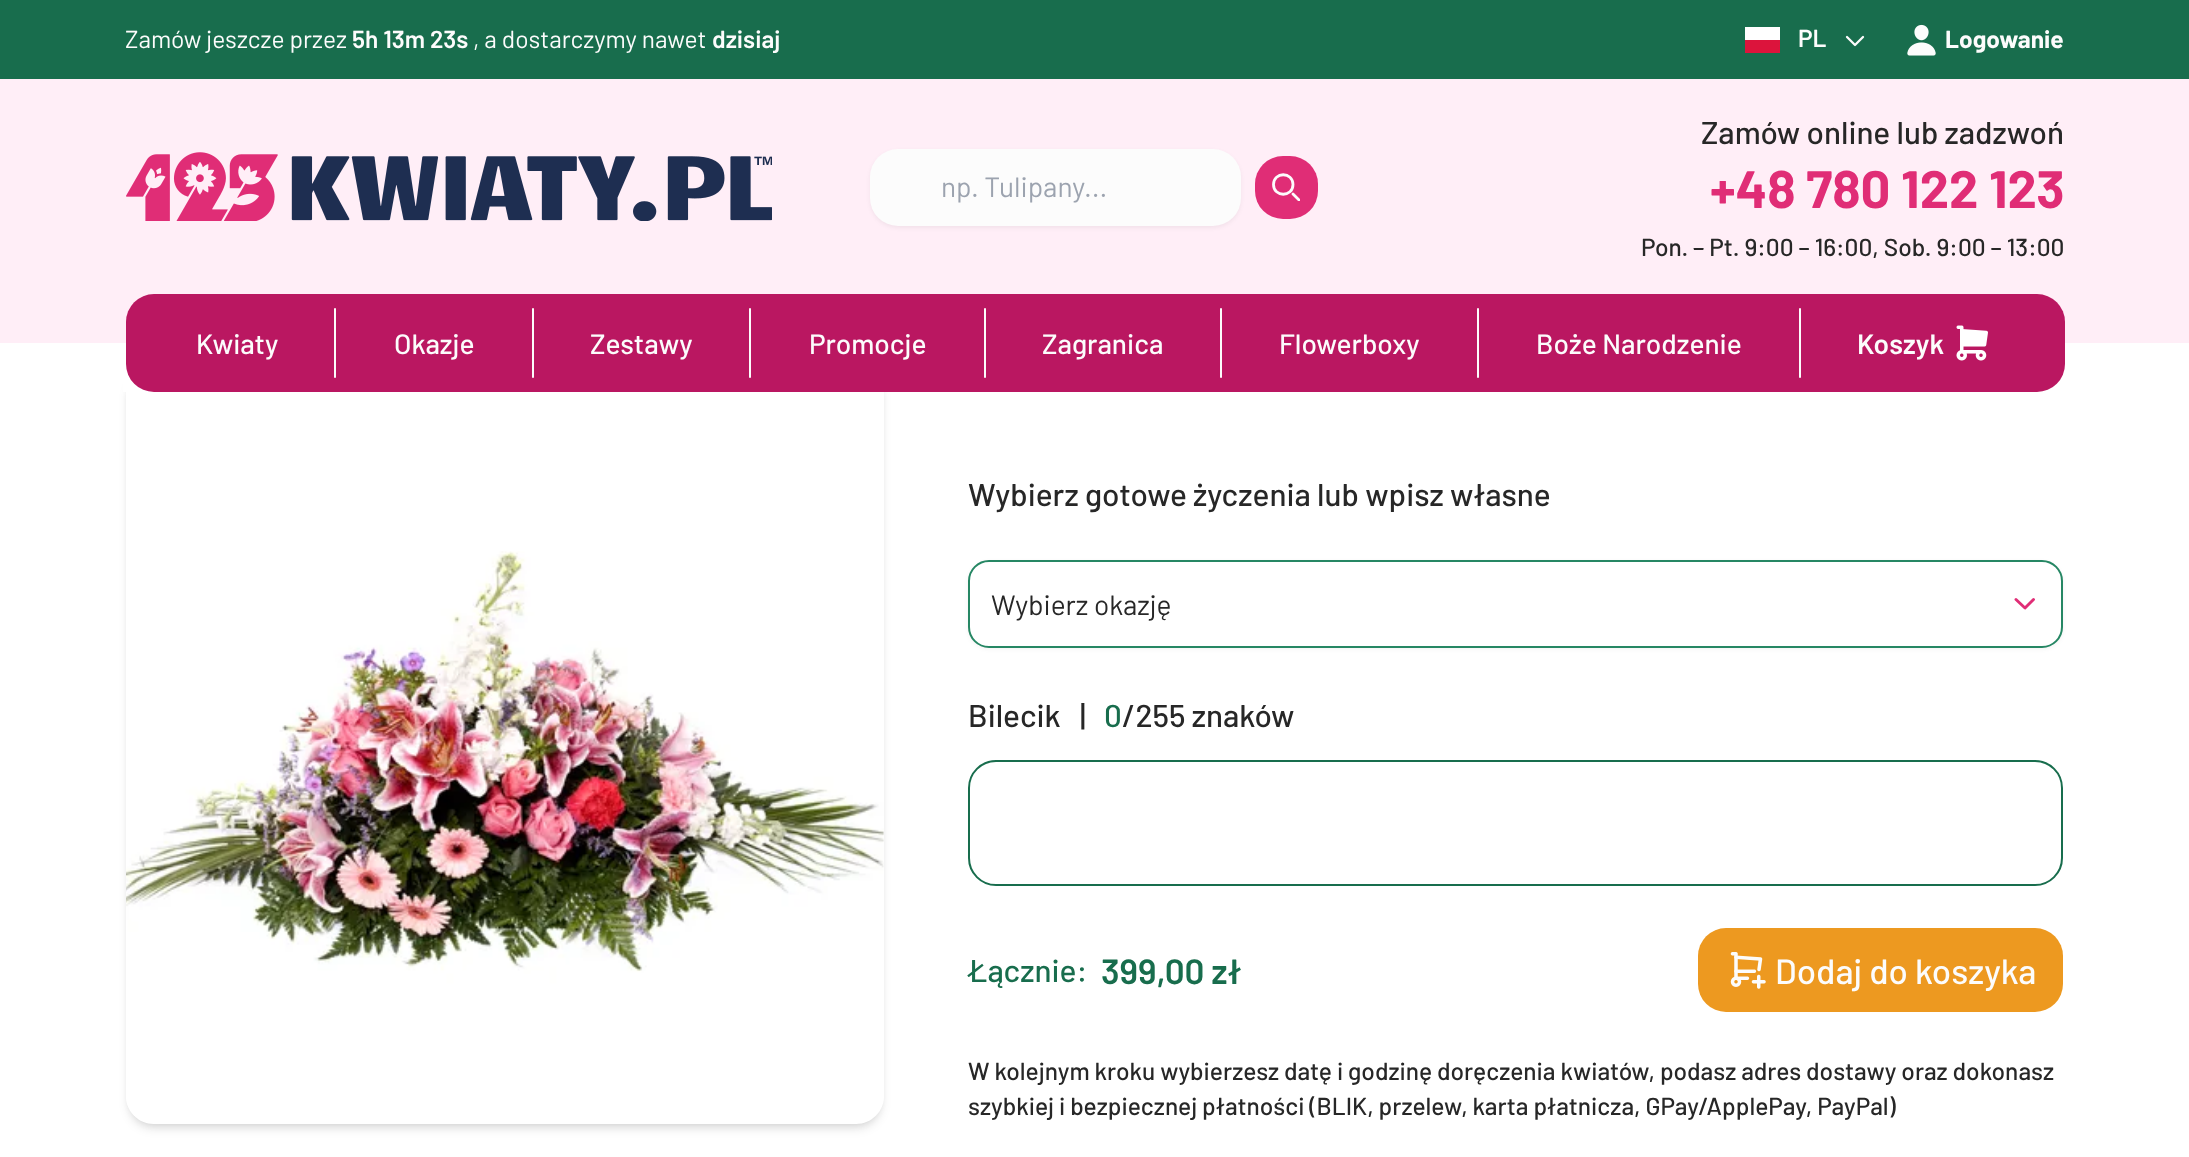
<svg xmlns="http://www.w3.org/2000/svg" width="2189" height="1157">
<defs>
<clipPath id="clip1"><path d="M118 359h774v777h-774zm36 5h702c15.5 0 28 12.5 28 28v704c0 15.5-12.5 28-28 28h-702c-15.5 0-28-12.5-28-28v-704c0-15.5 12.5-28 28-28z" clip-rule="evenodd"/></clipPath>
<clipPath id="clip2"><path d="M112 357h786v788h-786zm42 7h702c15.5 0 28 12.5 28 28v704c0 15.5-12.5 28-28 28h-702c-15.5 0-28-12.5-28-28v-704c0-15.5 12.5-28 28-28z" clip-rule="evenodd"/></clipPath>
<clipPath id="clip3"><rect x="1272" y="173" width="28" height="28"/></clipPath>
</defs>
<rect width="100%" height="100%" fill="#fff"/>
<rect width="2189" height="79" fill="#186d4d"/>
<text x="125" y="48" style="font-family:Barlow;font-size:24.5px;fill:#fcfcfc">Zamów jeszcze przez</text>
<text x="352" y="48" style="font-family:Barlow;font-size:24.5px;font-weight:600;fill:#fcfcfc">5h 13m 23s</text>
<text x="473" y="48" style="font-family:Barlow;font-size:24.5px;fill:#fcfcfc">, a dostarczymy nawet</text>
<text x="712" y="48" style="font-family:Barlow;font-size:24.5px;font-weight:600;fill:#fcfcfc">dzisiaj</text>
<rect x="1745" y="27" width="35" height="13" fill="#fff"/>
<rect x="1745" y="40" width="35" height="13" fill="#dc143c"/>
<text x="1798" y="47" style="font-family:Barlow;font-size:24.5px;font-weight:600;fill:#fcfcfc">PL</text>
<path d="M1863 37l-8 8l-8-8" fill="none" stroke="#fcfcfc" stroke-width="2.3" stroke-linecap="round" stroke-linejoin="round"/>
<image x="1907" y="24" width="29" height="32" href="media/1.png"/>
<text x="1945" y="48" style="font-family:Barlow;font-size:24.5px;font-weight:bold;fill:#fcfcfc">Logowanie</text>
<g clip-path="url(#clip1)">
<rect x="130" y="371" width="750" height="753" rx="25" fill="#0000001a" filter="blur(3.5px)"/>
</g>
<g clip-path="url(#clip2)">
<rect x="128" y="373" width="754" height="756" rx="26" fill="#0000001a" filter="blur(5px)"/>
</g>
<rect x="123" y="376" width="764" height="16" fill="#fff"/>
<rect y="79" width="2189" height="264" fill="#ffeef7"/>
<image x="126" y="152" width="646" height="69" href="media/2.png"/>
<rect x="870" y="151" width="371" height="77" rx="28" fill="#0000000d" filter="blur(2px)"/>
<rect x="870" y="149" width="371" height="77" rx="28" fill="#fcfcfc"/>
<text x="941" y="197" style="font-family:Barlow;font-size:28px;fill:#9ca3af">np. Tulipany...</text>
<rect x="1255" y="156" width="63" height="63" rx="28" fill="#e02d76"/>
<g clip-path="url(#clip3)">
<path d="M1299 200l-6-6m0-9.5c0 13-19.5 13-19.5 0c0-13 19.5-13 19.5 0z" fill="none" stroke="#fcfcfc" stroke-width="2.8" stroke-linecap="round" stroke-linejoin="round"/>
</g>
<text x="1701" y="144" style="font-family:Barlow;font-size:31.5px;font-weight:500;fill:#272727">Zamów online lub zadzwoń</text>
<text x="1710" y="208" style="font-family:Barlow;font-size:52.5px;font-weight:bold;fill:#e02d76">+48 780 122 123</text>
<text x="1641" y="256" style="font-family:Barlow;font-size:24.5px;font-weight:500;fill:#272727">Pon. – Pt. 9:00 – 16:00, Sob. 9:00 – 13:00</text>
<rect x="126" y="294" width="1939" height="98" rx="28" fill="#ba1761"/>
<text x="196" y="354" style="font-family:Barlow;font-size:28px;font-weight:500;fill:#fcfcfc">Kwiaty</text>
<rect x="334" y="308" width="2" height="70" rx="1" fill="#fcfcfc"/>
<text x="394" y="354" style="font-family:Barlow;font-size:28px;font-weight:500;fill:#fcfcfc">Okazje</text>
<rect x="532" y="308" width="2" height="70" rx="1" fill="#fcfcfc"/>
<text x="590" y="354" style="font-family:Barlow;font-size:28px;font-weight:500;fill:#fcfcfc">Zestawy</text>
<rect x="749" y="308" width="2" height="70" rx="1" fill="#fcfcfc"/>
<text x="809" y="354" style="font-family:Barlow;font-size:28px;font-weight:500;fill:#fcfcfc">Promocje</text>
<rect x="984" y="308" width="2" height="70" rx="1" fill="#fcfcfc"/>
<text x="1042" y="354" style="font-family:Barlow;font-size:28px;font-weight:500;fill:#fcfcfc">Zagranica</text>
<rect x="1220" y="308" width="2" height="70" rx="1" fill="#fcfcfc"/>
<text x="1279" y="354" style="font-family:Barlow;font-size:28px;font-weight:500;fill:#fcfcfc">Flowerboxy</text>
<rect x="1477" y="308" width="2" height="70" rx="1" fill="#fcfcfc"/>
<text x="1536" y="354" style="font-family:Barlow;font-size:28px;font-weight:500;fill:#fcfcfc">Boże Narodzenie</text>
<rect x="1799" y="308" width="2" height="70" rx="1" fill="#fcfcfc"/>
<text x="1857" y="354" style="font-family:Barlow;font-size:28px;font-weight:600;fill:#fcfcfc">Koszyk</text>
<image x="1956" y="325" width="32" height="36" href="media/3.png"/>
<image x="126" y="551" width="758" height="573" href="media/4.png"/>
<text x="968" y="506" style="font-family:Barlow;font-size:31.5px;font-weight:500;fill:#272727">Wybierz gotowe życzenia lub wpisz własne</text>
<rect x="968" y="562" width="1095" height="87" rx="21" fill="#0000000d" filter="blur(2px)"/>
<rect x="969" y="561" width="1093" height="86" rx="20" fill="#fff" stroke="#268764" stroke-width="2"/>
<text x="991" y="615" style="font-family:Barlow;font-size:28px;fill:#272727">Wybierz okazję</text>
<path d="M2016 599.5l9 8.5l8.5-8.5" fill="none" stroke="#e02d76" stroke-width="2.9" stroke-linecap="round" stroke-linejoin="round"/>
<text x="968" y="727" style="font-family:Barlow;font-size:31.5px;font-weight:500;fill:#272727">Bilecik</text>
<text x="1080" y="727" style="font-family:Barlow;font-size:31.5px;font-weight:500;fill:#272727">|</text>
<text x="1104" y="727" style="font-family:Barlow;font-size:31.5px;font-weight:500;fill:#186d4d">0</text>
<text x="1122" y="727" style="font-family:Barlow;font-size:31.5px;font-weight:500;fill:#272727">/255 znaków</text>
<rect x="969" y="761" width="1093" height="124" rx="27" fill="none" stroke="#186d4d" stroke-width="2"/>
<text x="968" y="982" style="font-family:Barlow;font-size:31.5px;font-weight:500;fill:#186d4d">Łącznie:</text>
<text x="1101" y="984" style="font-family:Barlow;font-size:35px;font-weight:600;fill:#186d4d">399,00 zł</text>
<rect x="1698" y="928" width="365" height="84" rx="28" fill="#ed9920"/>
<image x="1730" y="952" width="36" height="37" href="media/5.png"/>
<text x="1775" y="984" style="font-family:Barlow;font-size:35px;font-weight:500;fill:#fcfcfc">Dodaj do koszyka</text>
<text x="968" y="1080" style="font-family:Barlow;font-size:24.5px;font-weight:500;fill:#272727">W kolejnym kroku wybierzesz datę i godzinę doręczenia kwiatów, podasz adres dostawy oraz dokonasz</text>
<text x="968" y="1115" style="font-family:Barlow;font-size:24.5px;font-weight:500;fill:#272727">szybkiej i bezpiecznej płatności (BLIK, przelew, karta płatnicza, GPay/ApplePay, PayPal)</text>
</svg>
